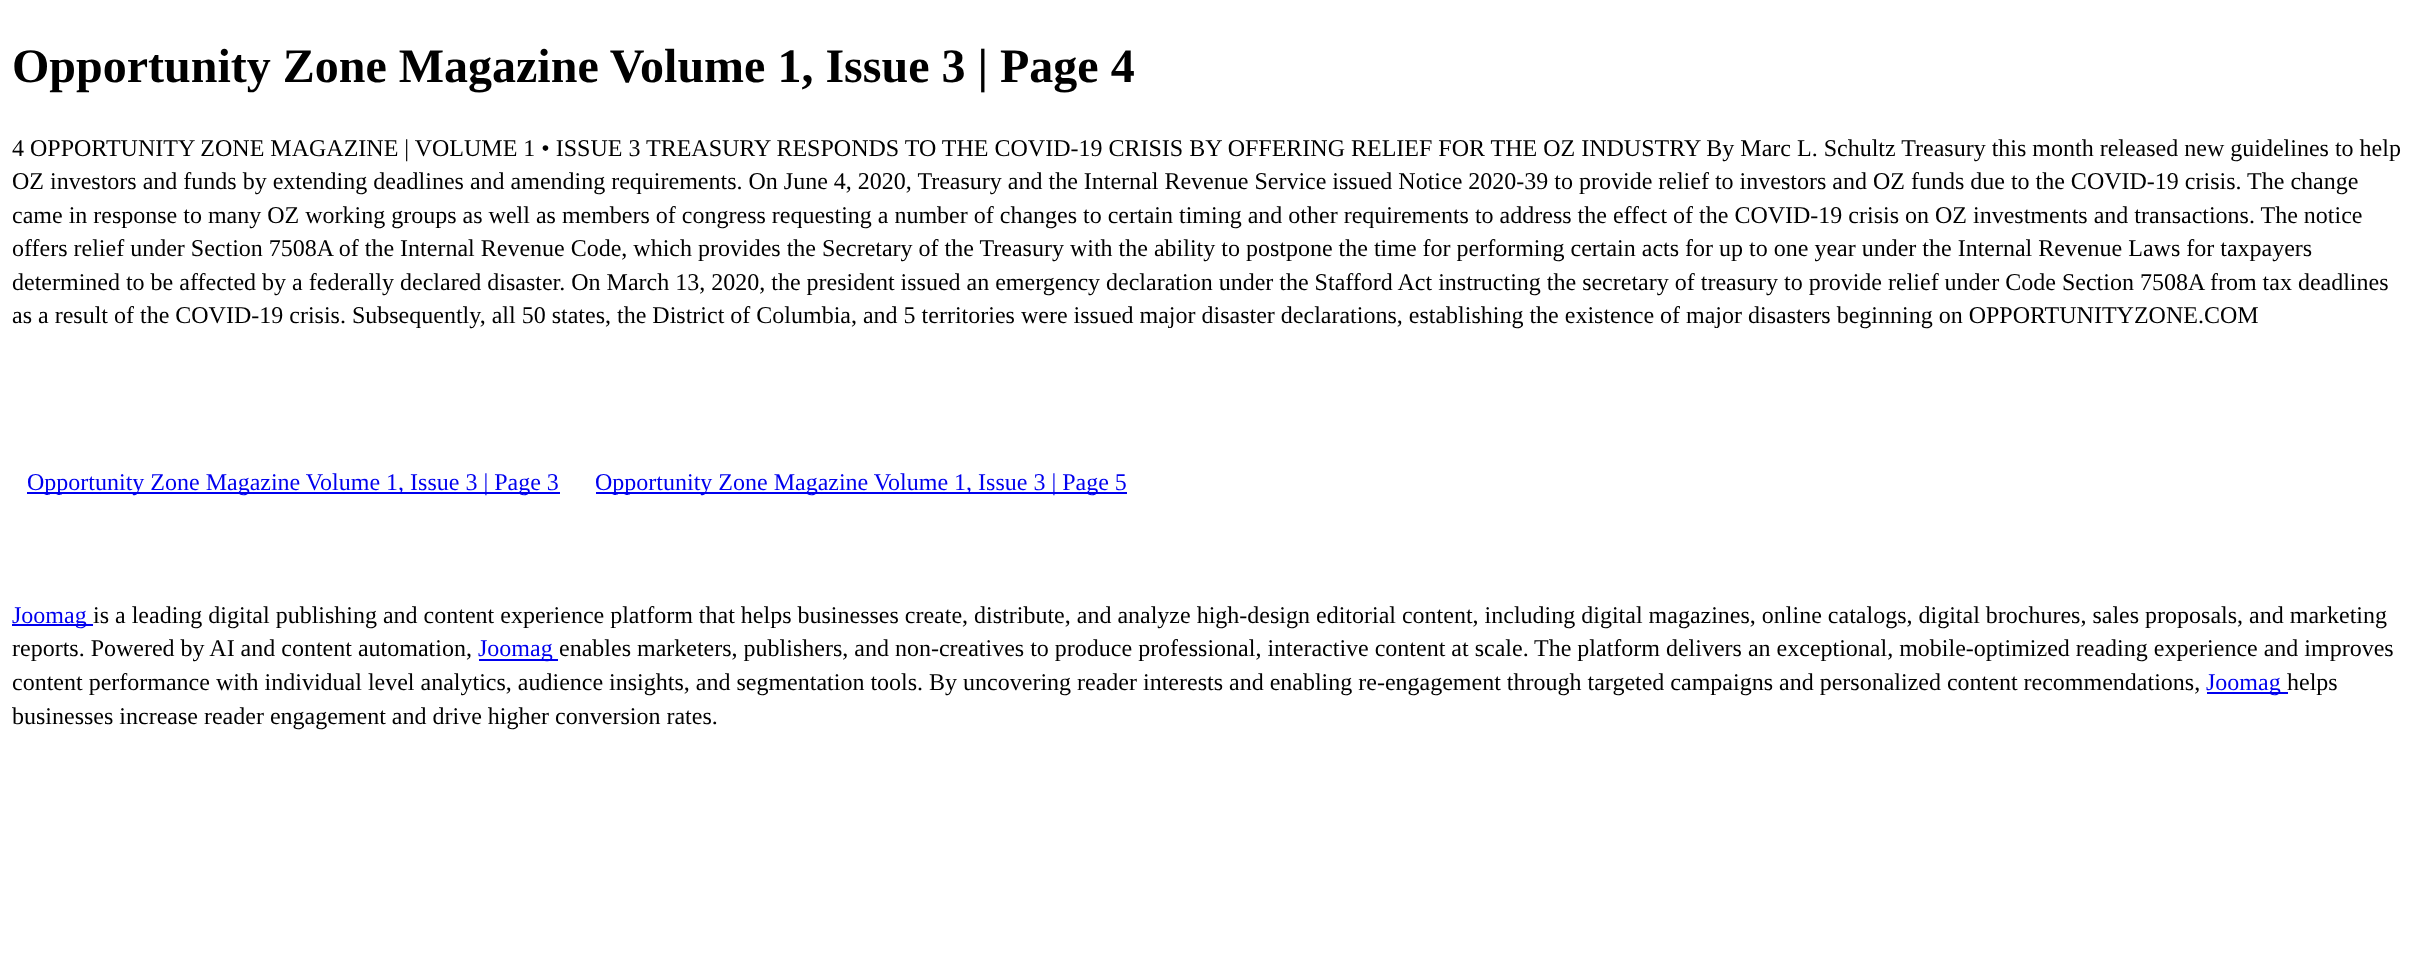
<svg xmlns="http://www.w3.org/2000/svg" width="2415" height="970">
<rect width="100%" height="100%" fill="#fff"/>
<text x="12" y="82" style="font-family:Liberation Serif;font-size:48px;font-weight:bold;fill:#000">Opportunity Zone Magazine Volume 1, Issue 3 | Page 4</text>
<text x="12" y="156" style="font-family:Liberation Serif;font-size:24px;fill:#000">4 OPPORTUNITY ZONE MAGAZINE | VOLUME 1 • ISSUE 3 TREASURY RESPONDS TO THE COVID-19 CRISIS BY OFFERING RELIEF FOR THE OZ INDUSTRY By Marc L. Schultz Treasury this month released new guidelines to help</text>
<text x="12" y="189" style="font-family:Liberation Serif;font-size:24px;fill:#000">OZ investors and funds by extending deadlines and amending requirements. On June 4, 2020, Treasury and the Internal Revenue Service issued Notice 2020-39 to provide relief to investors and OZ funds due to the COVID-19 crisis. The change</text>
<text x="12" y="223" style="font-family:Liberation Serif;font-size:24px;fill:#000">came in response to many OZ working groups as well as members of congress requesting a number of changes to certain timing and other requirements to address the effect of the COVID-19 crisis on OZ investments and transactions. The notice</text>
<text x="12" y="256" style="font-family:Liberation Serif;font-size:24px;fill:#000">offers relief under Section 7508A of the Internal Revenue Code, which provides the Secretary of the Treasury with the ability to postpone the time for performing certain acts for up to one year under the Internal Revenue Laws for taxpayers</text>
<text x="12" y="290" style="font-family:Liberation Serif;font-size:24px;fill:#000">determined to be affected by a federally declared disaster. On March 13, 2020, the president issued an emergency declaration under the Stafford Act instructing the secretary of treasury to provide relief under Code Section 7508A from tax deadlines</text>
<text x="12" y="323" style="font-family:Liberation Serif;font-size:24px;fill:#000">as a result of the COVID-19 crisis. Subsequently, all 50 states, the District of Columbia, and 5 territories were issued major disaster declarations, establishing the existence of major disasters beginning on OPPORTUNITYZONE.COM</text>
<rect x="27" y="492" width="533" height="2" fill="#00e"/>
<text x="27" y="490" style="font-family:Liberation Serif;font-size:24px;fill:#00e">Opportunity Zone Magazine Volume 1, Issue 3 | Page 3</text>
<rect x="596" y="492" width="531" height="2" fill="#00e"/>
<text x="595" y="490" style="font-family:Liberation Serif;font-size:24px;fill:#00e">Opportunity Zone Magazine Volume 1, Issue 3 | Page 5</text>
<rect x="12" y="624" width="81" height="2" fill="#00e"/>
<text x="12" y="623" style="font-family:Liberation Serif;font-size:24px;fill:#00e">Joomag</text>
<text x="93" y="623" style="font-family:Liberation Serif;font-size:24px;fill:#000">is a leading digital publishing and content experience platform that helps businesses create, distribute, and analyze high-design editorial content, including digital magazines, online catalogs, digital brochures, sales proposals, and marketing</text>
<text x="12" y="656" style="font-family:Liberation Serif;font-size:24px;fill:#000">reports. Powered by AI and content automation,</text>
<rect x="479" y="659" width="79" height="2" fill="#00e"/>
<text x="478" y="656" style="font-family:Liberation Serif;font-size:24px;fill:#00e">Joomag</text>
<text x="559" y="656" style="font-family:Liberation Serif;font-size:24px;fill:#000">enables marketers, publishers, and non-creatives to produce professional, interactive content at scale.</text>
<text x="1534" y="656" style="font-family:Liberation Serif;font-size:24px;fill:#000">The platform delivers an exceptional, mobile-optimized reading experience and improves</text>
<text x="12" y="690" style="font-family:Liberation Serif;font-size:24px;fill:#000">content performance with individual level analytics, audience insights, and segmentation tools. By uncovering reader interests and enabling re-engagement through targeted campaigns and personalized content recommendations,</text>
<rect x="2207" y="692" width="81" height="2" fill="#00e"/>
<text x="2206" y="690" style="font-family:Liberation Serif;font-size:24px;fill:#00e">Joomag</text>
<text x="2287" y="690" style="font-family:Liberation Serif;font-size:24px;fill:#000">helps</text>
<text x="12" y="724" style="font-family:Liberation Serif;font-size:24px;fill:#000">businesses increase reader engagement and drive higher conversion rates.</text>
</svg>
